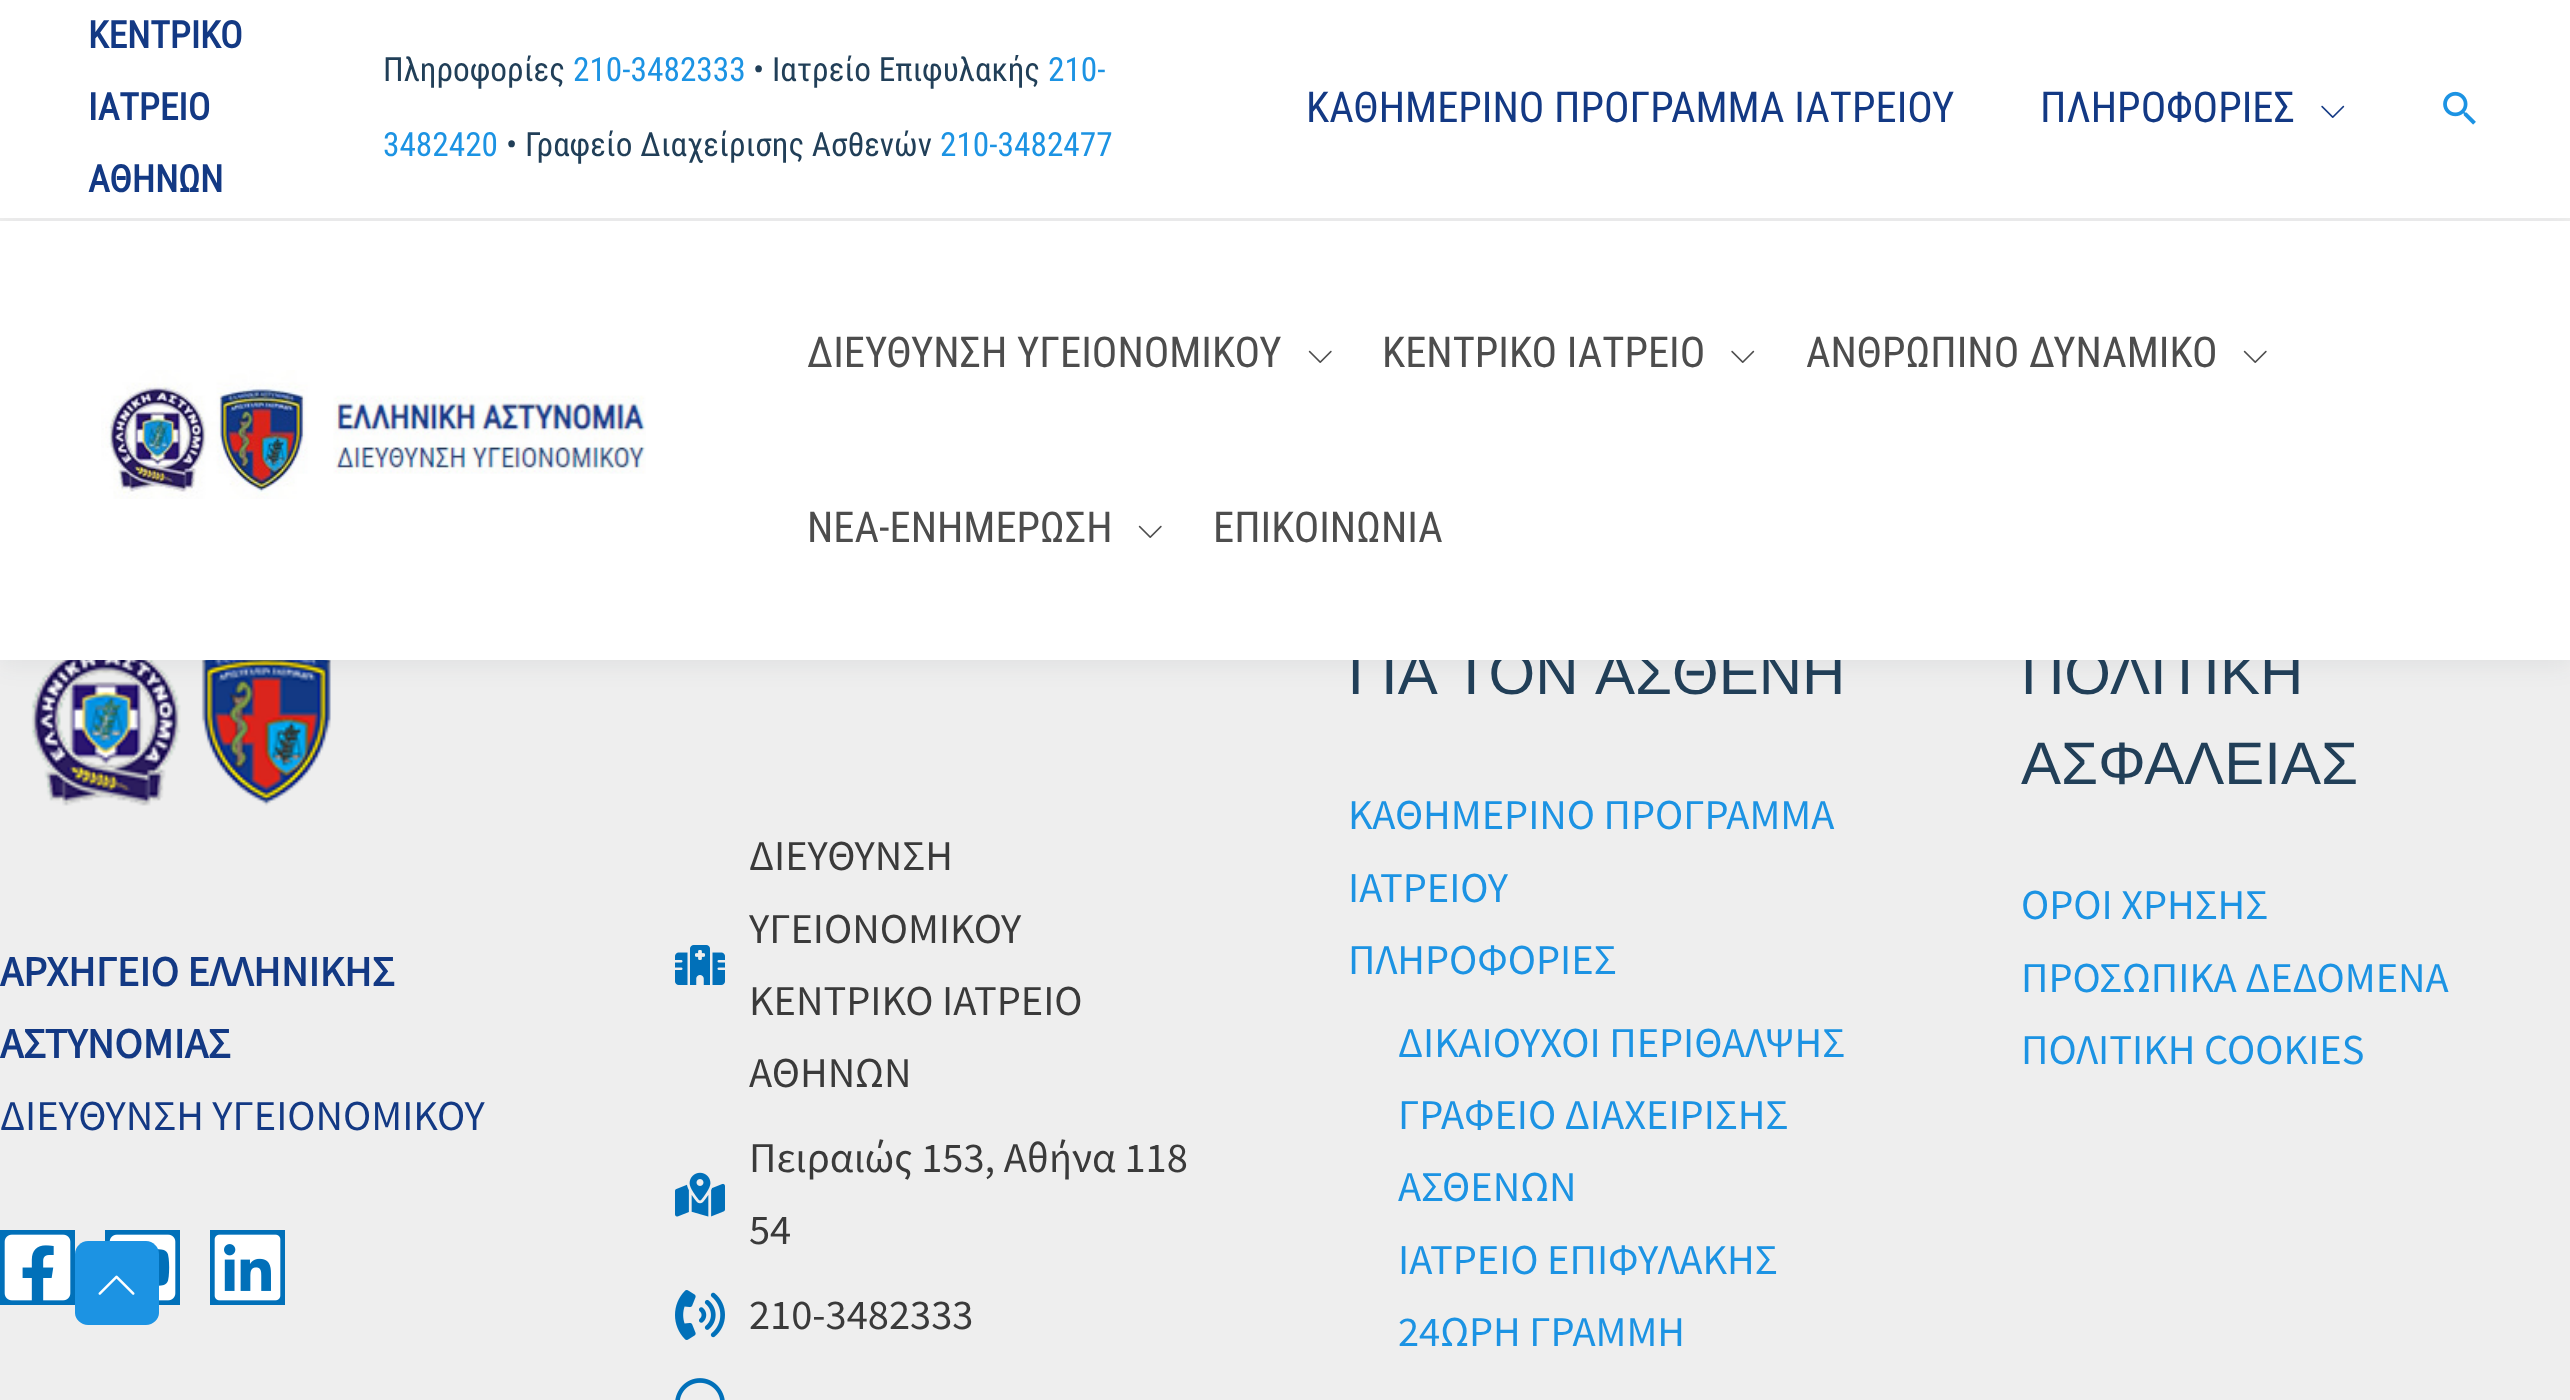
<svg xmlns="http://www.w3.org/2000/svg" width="2570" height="1400">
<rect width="100%" height="100%" fill="#eee"/>
<image x="31" y="660" width="300" height="146" href="media/6.png"/>
<rect y="225" width="2570" height="440" fill="#24324212" filter="blur(12.5px)"/>
<rect width="2570" height="218" fill="#fff"/>
<text x="88" y="48" style="font-family:Roboto Condensed;font-size:37.5px;font-weight:bold;fill:#133984">ΚΕΝΤΡΙΚΟ</text>
<text x="88" y="120" style="font-family:Roboto Condensed;font-size:37.5px;font-weight:bold;fill:#133984">ΙΑΤΡΕΙΟ</text>
<text x="88" y="192" style="font-family:Roboto Condensed;font-size:37.5px;font-weight:bold;fill:#133984">ΑΘΗΝΩΝ</text>
<text x="383" y="81" style="font-family:Roboto Condensed;font-size:33.3px;fill:#213f58">Πληροφορίες</text>
<text x="573" y="81" style="font-family:Roboto Condensed;font-size:33.3px;fill:#1c93e3">210-3482333</text>
<text x="753" y="81" style="font-family:Roboto Condensed;font-size:33.3px;fill:#213f58">• Ιατρείο Επιφυλακής</text>
<text x="1048" y="81" style="font-family:Roboto Condensed;font-size:33.3px;fill:#1c93e3">210-</text>
<text x="383" y="156" style="font-family:Roboto Condensed;font-size:33.3px;fill:#1c93e3">3482420</text>
<text x="506" y="156" style="font-family:Roboto Condensed;font-size:33.3px;fill:#213f58">• Γραφείο Διαχείρισης Ασθενών</text>
<text x="940" y="156" style="font-family:Roboto Condensed;font-size:33.3px;fill:#1c93e3">210-3482477</text>
<text x="1306" y="122" style="font-family:Roboto Condensed;font-size:42.5px;fill:#133984">ΚΑΘΗΜΕΡΙΝΟ ΠΡΟΓΡΑΜΜΑ ΙΑΤΡΕΙΟΥ</text>
<text x="2040" y="122" style="font-family:Roboto Condensed;font-size:42.5px;fill:#133984">ΠΛΗΡΟΦΟΡΙΕΣ</text>
<image x="2321" y="105" width="24" height="13" href="media/1.png"/>
<image x="2443" y="91" width="33" height="34" href="media/2.png"/>
<text x="1348" y="694" word-spacing="3" style="font-family:Liberation Sans;font-size:60px;fill:#213f58">ΓΙΑ ΤΟΝ ΑΣΘΕΝΗ</text>
<text x="2021" y="694" style="font-family:Liberation Sans;font-size:60px;fill:#213f58">ΠΟΛΙΤΙΚΗ</text>
<rect y="221" width="2570" height="439" fill="#fff"/>
<image x="101" y="370" width="545" height="129" href="media/3.png"/>
<text x="807" y="367" style="font-family:Roboto Condensed;font-size:42.5px;fill:#4d4d4d">ΔΙΕΥΘΥΝΣΗ ΥΓΕΙΟΝΟΜΙΚΟΥ</text>
<image x="1308" y="350" width="24" height="13" href="media/4.png"/>
<text x="1382" y="367" style="font-family:Roboto Condensed;font-size:42.5px;fill:#4d4d4d">ΚΕΝΤΡΙΚΟ ΙΑΤΡΕΙΟ</text>
<image x="1731" y="350" width="24" height="13" href="media/5.png"/>
<text x="1806" y="367" style="font-family:Roboto Condensed;font-size:42.5px;fill:#4d4d4d">ΑΝΘΡΩΠΙΝΟ ΔΥΝΑΜΙΚΟ</text>
<image x="2243" y="350" width="24" height="13" href="media/4.png"/>
<text x="807" y="542" style="font-family:Roboto Condensed;font-size:42.5px;fill:#4d4d4d">ΝΕΑ-ΕΝΗΜΕΡΩΣΗ</text>
<image x="1138" y="525" width="24" height="13" href="media/4.png"/>
<text x="1213" y="542" style="font-family:Roboto Condensed;font-size:42.5px;fill:#4d4d4d">ΕΠΙΚΟΙΝΩΝΙΑ</text>
<text x="0" y="986" style="font-family:Source Sans Pro;font-size:42.5px;font-weight:bold;fill:#133984">ΑΡΧΗΓΕΙΟ ΕΛΛΗΝΙΚΗΣ</text>
<text x="0" y="1058" style="font-family:Source Sans Pro;font-size:42.5px;font-weight:bold;fill:#133984">ΑΣΤΥΝΟΜΙΑΣ</text>
<text x="0" y="1130" style="font-family:Source Sans Pro;font-size:42.5px;fill:#133984">ΔΙΕΥΘΥΝΣΗ ΥΓΕΙΟΝΟΜΙΚΟΥ</text>
<rect y="1230" width="75" height="75" fill="#0170b9"/>
<image x="4" y="1234" width="67" height="67" href="media/7.png"/>
<rect x="105" y="1230" width="75" height="75" fill="#0170b9"/>
<image x="109" y="1234" width="67" height="67" href="media/8.png"/>
<rect x="210" y="1230" width="75" height="75" fill="#0170b9"/>
<image x="214" y="1234" width="67" height="67" href="media/9.png"/>
<image x="675" y="945" width="50" height="40" href="media/10.png"/>
<text x="749" y="870" style="font-family:Source Sans Pro;font-size:42.5px;fill:#3a3a3a">ΔΙΕΥΘΥΝΣΗ</text>
<text x="749" y="943" style="font-family:Source Sans Pro;font-size:42.5px;fill:#3a3a3a">ΥΓΕΙΟΝΟΜΙΚΟΥ</text>
<text x="749" y="1015" style="font-family:Source Sans Pro;font-size:42.5px;fill:#3a3a3a">ΚΕΝΤΡΙΚΟ ΙΑΤΡΕΙΟ</text>
<text x="749" y="1087" style="font-family:Source Sans Pro;font-size:42.5px;fill:#3a3a3a">ΑΘΗΝΩΝ</text>
<image x="675" y="1172" width="50" height="45" href="media/11.png"/>
<text x="749" y="1172" style="font-family:Source Sans Pro;font-size:42.5px;fill:#3a3a3a">Πειραιώς 153, Αθήνα 118</text>
<text x="749" y="1244" style="font-family:Source Sans Pro;font-size:42.5px;fill:#3a3a3a">54</text>
<image x="675" y="1290" width="50" height="50" href="media/12.png"/>
<text x="749" y="1329" style="font-family:Source Sans Pro;font-size:42.5px;fill:#3a3a3a">210-3482333</text>
<image x="675" y="1378" width="50" height="22" href="media/13.png"/>
<text x="1348" y="829" style="font-family:Source Sans Pro;font-size:42.5px;fill:#1c93e3">ΚΑΘΗΜΕΡΙΝΟ ΠΡΟΓΡΑΜΜΑ</text>
<text x="1348" y="902" style="font-family:Source Sans Pro;font-size:42.5px;fill:#1c93e3">ΙΑΤΡΕΙΟΥ</text>
<text x="1348" y="974" style="font-family:Source Sans Pro;font-size:42.5px;fill:#1c93e3">ΠΛΗΡΟΦΟΡΙΕΣ</text>
<text x="1398" y="1057" style="font-family:Source Sans Pro;font-size:42.5px;fill:#1c93e3">ΔΙΚΑΙΟΥΧΟΙ ΠΕΡΙΘΑΛΨΗΣ</text>
<text x="1398" y="1129" style="font-family:Source Sans Pro;font-size:42.5px;fill:#1c93e3">ΓΡΑΦΕΙΟ ΔΙΑΧΕΙΡΙΣΗΣ</text>
<text x="1398" y="1201" style="font-family:Source Sans Pro;font-size:42.5px;fill:#1c93e3">ΑΣΘΕΝΩΝ</text>
<text x="1398" y="1274" style="font-family:Source Sans Pro;font-size:42.5px;fill:#1c93e3">ΙΑΤΡΕΙΟ ΕΠΙΦΥΛΑΚΗΣ</text>
<text x="1398" y="1346" style="font-family:Source Sans Pro;font-size:42.5px;fill:#1c93e3">24ΩΡΗ ΓΡΑΜΜΗ</text>
<text x="2021" y="784" style="font-family:Liberation Sans;font-size:60px;fill:#213f58">ΑΣΦΑΛΕΙΑΣ</text>
<text x="2021" y="919" style="font-family:Source Sans Pro;font-size:42.5px;fill:#1c93e3">ΟΡΟΙ ΧΡΗΣΗΣ</text>
<text x="2021" y="992" style="font-family:Source Sans Pro;font-size:42.5px;fill:#1c93e3">ΠΡΟΣΩΠΙΚΑ ΔΕΔΟΜΕΝΑ</text>
<text x="2021" y="1064" style="font-family:Source Sans Pro;font-size:42.5px;fill:#1c93e3">ΠΟΛΙΤΙΚΗ COOKIES</text>
<path d="M146 1325h-58c-7 0-13-6-13-12v-59c0-7 6-13 13-13h58c7 0 13 6 13 13v59c0 6-6 12-13 12z" fill="#1c93e3"/>
<image x="98" y="1275" width="37" height="20" href="media/14.png"/>
</svg>
